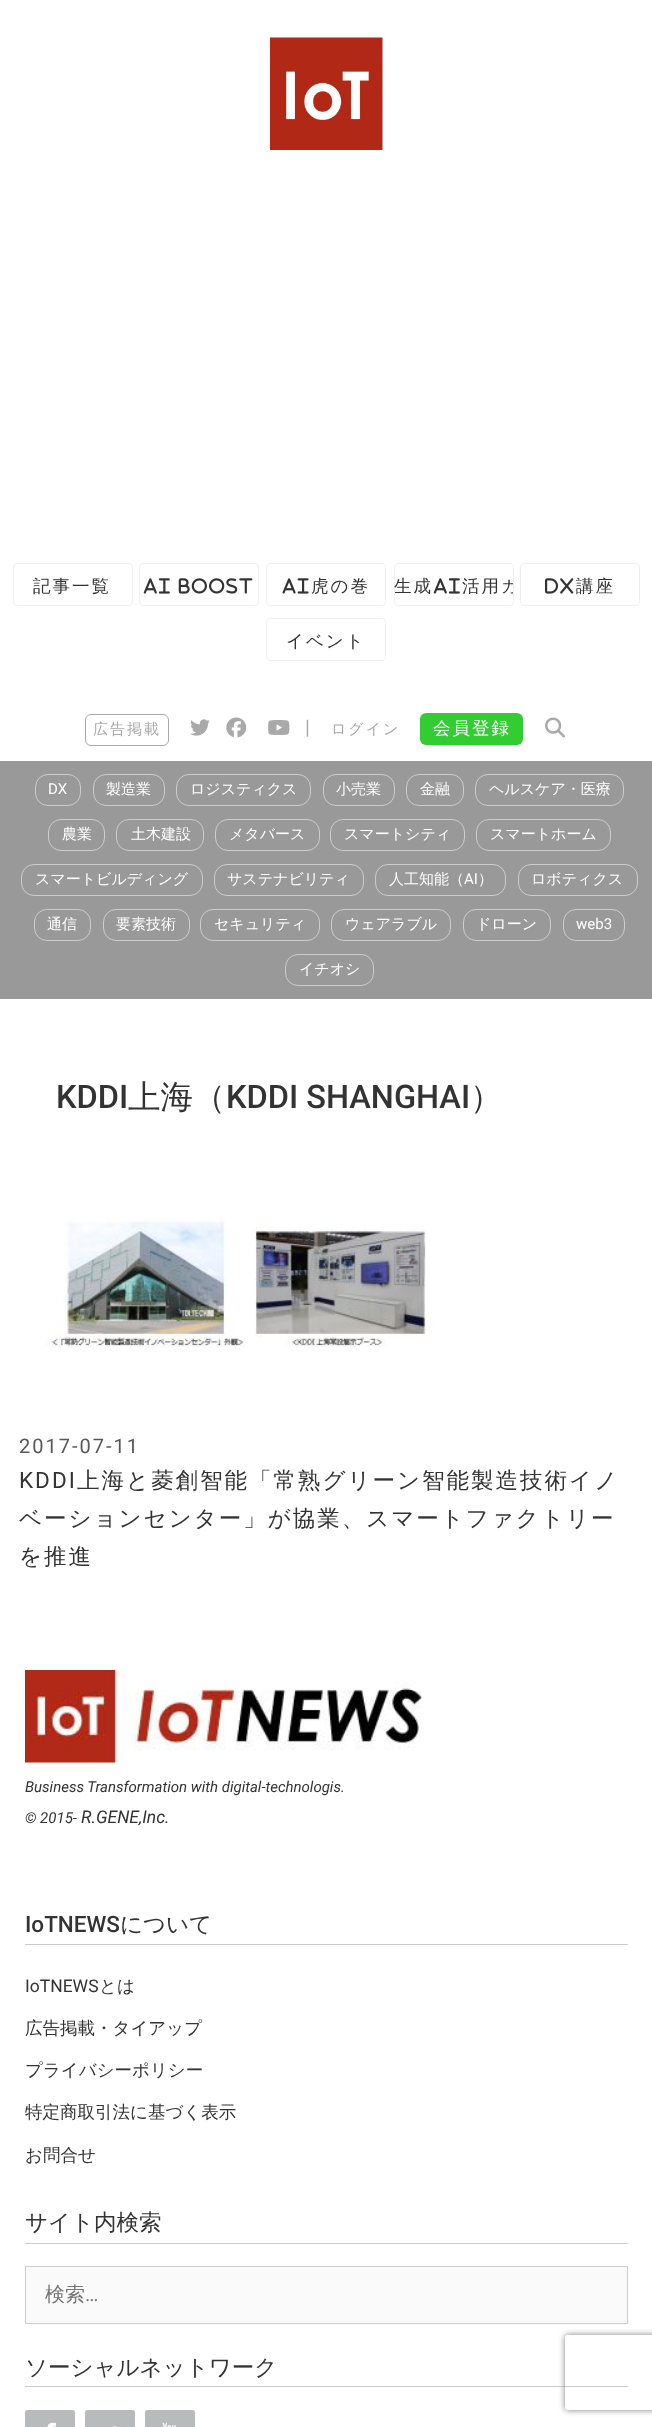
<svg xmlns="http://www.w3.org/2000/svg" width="652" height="2427">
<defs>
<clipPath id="clip1"><rect x="395" y="564" width="118" height="41" rx="2.5"/></clipPath>
<clipPath id="clip2"><path d="M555 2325h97v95h-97zm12.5 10h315c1.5 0 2.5 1 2.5 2.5v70c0 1.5-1 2.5-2.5 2.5h-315c-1.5 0-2.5-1-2.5-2.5v-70c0-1.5 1-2.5 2.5-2.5z" clip-rule="evenodd"/></clipPath>
</defs>
<rect width="100%" height="100%" fill="#fff"/>
<image x="270" y="37" width="113" height="113" href="media/1.png"/>
<rect x="13.5" y="563.5" width="119" height="42" rx="3.5" fill="none" stroke="#f0f0f0"/>
<text x="33" y="592" style="font-family:WenQuanYi Zen Hei;font-size:17.5px;font-weight:500;letter-spacing:2px;fill:#333">記事一覧</text>
<rect x="139.5" y="563.5" width="119" height="42" rx="3.5" fill="none" stroke="#f0f0f0"/>
<image x="143" y="578" width="27" height="16" href="media/2.png"/>
<image x="178" y="578" width="75" height="16" href="media/3.png"/>
<rect x="266.5" y="563.5" width="119" height="42" rx="3.5" fill="none" stroke="#f0f0f0"/>
<image x="282" y="578" width="27" height="16" href="media/4.png"/>
<text x="311" y="592" style="font-family:WenQuanYi Zen Hei;font-size:17.5px;font-weight:500;letter-spacing:2px;fill:#333">虎の巻</text>
<rect x="394.5" y="563.5" width="119" height="42" rx="3.5" fill="none" stroke="#f0f0f0"/>
<text x="394" y="592" style="font-family:WenQuanYi Zen Hei;font-size:17.5px;font-weight:500;letter-spacing:2px;fill:#333">生成</text>
<image x="433" y="578" width="27" height="16" href="media/2.png"/>
<g clip-path="url(#clip1)">
<text x="462" y="592" style="font-family:WenQuanYi Zen Hei;font-size:17.5px;font-weight:500;letter-spacing:2px;fill:#333">活用ガ</text>
</g>
<rect x="520.5" y="563.5" width="119" height="42" rx="3.5" fill="none" stroke="#f0f0f0"/>
<image x="545" y="578" width="29" height="16" href="media/5.png"/>
<text x="576" y="592" style="font-family:WenQuanYi Zen Hei;font-size:17.5px;font-weight:500;letter-spacing:2px;fill:#333">講座</text>
<rect x="266.5" y="618.5" width="119" height="42" rx="3.5" fill="none" stroke="#f0f0f0"/>
<text x="286" y="647" style="font-family:WenQuanYi Zen Hei;font-size:17.5px;font-weight:500;letter-spacing:2px;fill:#333">イベント</text>
<rect x="85.5" y="714.5" width="83" height="31" rx="5.5" fill="none" stroke="#a9a9a9"/>
<text x="93" y="734" style="font-family:WenQuanYi Zen Hei;font-size:15px;font-weight:500;letter-spacing:2px;fill:#a9a9a9">広告掲載</text>
<image x="190" y="719" width="20" height="17" href="media/6.png"/>
<image x="226" y="717" width="21" height="21" href="media/7.png"/>
<image x="268" y="720" width="22" height="15" href="media/8.png"/>
<text x="305" y="734" style="font-family:Roboto;font-size:20px;letter-spacing:2px;fill:#a9a9a9">|</text>
<text x="331" y="734" style="font-family:WenQuanYi Zen Hei;font-size:15px;font-weight:500;letter-spacing:2px;fill:#a9a9a9">ログイン</text>
<rect x="420" y="713" width="103" height="32" rx="6" fill="#32cd32"/>
<text x="433" y="734" style="font-family:WenQuanYi Zen Hei;font-size:17.5px;font-weight:500;letter-spacing:2px;fill:#fff">会員登録</text>
<image x="545" y="717" width="20" height="21" href="media/9.png"/>
<rect y="761" width="652" height="238" fill="#999"/>
<rect x="35.5" y="774.5" width="45" height="31" rx="12.5" fill="none" stroke="#ccc"/>
<text x="48" y="794" style="font-family:Roboto;font-size:15px;fill:#fff">DX</text>
<rect x="93.5" y="774.5" width="71" height="31" rx="12.5" fill="none" stroke="#ccc"/>
<text x="106" y="794" style="font-family:WenQuanYi Zen Hei;font-size:15px;font-weight:500;fill:#fff">製造業</text>
<rect x="176.5" y="774.5" width="134" height="31" rx="12.5" fill="none" stroke="#ccc"/>
<text x="190" y="794" style="font-family:WenQuanYi Zen Hei;font-size:15px;font-weight:500;fill:#fff">ロジスティクス</text>
<rect x="323.5" y="774.5" width="71" height="31" rx="12.5" fill="none" stroke="#ccc"/>
<text x="336" y="794" style="font-family:WenQuanYi Zen Hei;font-size:15px;font-weight:500;fill:#fff">小売業</text>
<rect x="406.5" y="774.5" width="57" height="31" rx="12.5" fill="none" stroke="#ccc"/>
<text x="420" y="794" style="font-family:WenQuanYi Zen Hei;font-size:15px;font-weight:500;fill:#fff">金融</text>
<rect x="475.5" y="774.5" width="148" height="31" rx="12.5" fill="none" stroke="#ccc"/>
<text x="489" y="794" style="font-family:WenQuanYi Zen Hei;font-size:15px;font-weight:500;fill:#fff">ヘルスケア・医療</text>
<rect x="48.5" y="819.5" width="56" height="31" rx="12.5" fill="none" stroke="#ccc"/>
<text x="62" y="839" style="font-family:WenQuanYi Zen Hei;font-size:15px;font-weight:500;fill:#fff">農業</text>
<rect x="116.5" y="819.5" width="87" height="31" rx="12.5" fill="none" stroke="#ccc"/>
<text x="131" y="839" style="font-family:WenQuanYi Zen Hei;font-size:15px;font-weight:500;fill:#fff">土木建設</text>
<rect x="215.5" y="819.5" width="104" height="31" rx="12.5" fill="none" stroke="#ccc"/>
<text x="229" y="839" style="font-family:WenQuanYi Zen Hei;font-size:15px;font-weight:500;fill:#fff">メタバース</text>
<rect x="330.5" y="819.5" width="134" height="31" rx="12.5" fill="none" stroke="#ccc"/>
<text x="344" y="839" style="font-family:WenQuanYi Zen Hei;font-size:15px;font-weight:500;fill:#fff">スマートシティ</text>
<rect x="476.5" y="819.5" width="134" height="31" rx="12.5" fill="none" stroke="#ccc"/>
<text x="490" y="839" style="font-family:WenQuanYi Zen Hei;font-size:15px;font-weight:500;fill:#fff">スマートホーム</text>
<rect x="21.5" y="864.5" width="181" height="31" rx="12.5" fill="none" stroke="#ccc"/>
<text x="35" y="884" style="font-family:WenQuanYi Zen Hei;font-size:15px;font-weight:500;fill:#fff">スマートビルディング</text>
<rect x="214.5" y="864.5" width="149" height="31" rx="12.5" fill="none" stroke="#ccc"/>
<text x="227" y="884" style="font-family:WenQuanYi Zen Hei;font-size:15px;font-weight:500;fill:#fff">サステナビリティ</text>
<rect x="375.5" y="864.5" width="130" height="31" rx="12.5" fill="none" stroke="#ccc"/>
<text x="389" y="884" style="font-family:WenQuanYi Zen Hei;font-size:15px;font-weight:500;fill:#fff">人工知能（</text>
<text x="464" y="884" style="font-family:Roboto;font-size:15px;fill:#fff">AI</text>
<text x="478" y="884" style="font-family:WenQuanYi Zen Hei;font-size:15px;font-weight:500;fill:#fff">）</text>
<rect x="518.5" y="864.5" width="119" height="31" rx="12.5" fill="none" stroke="#ccc"/>
<text x="531" y="884" style="font-family:WenQuanYi Zen Hei;font-size:15px;font-weight:500;fill:#fff">ロボティクス</text>
<rect x="34.5" y="909.5" width="56" height="31" rx="12.5" fill="none" stroke="#ccc"/>
<text x="47" y="929" style="font-family:WenQuanYi Zen Hei;font-size:15px;font-weight:500;fill:#fff">通信</text>
<rect x="103.5" y="909.5" width="86" height="31" rx="12.5" fill="none" stroke="#ccc"/>
<text x="116" y="929" style="font-family:WenQuanYi Zen Hei;font-size:15px;font-weight:500;fill:#fff">要素技術</text>
<rect x="200.5" y="909.5" width="119" height="31" rx="12.5" fill="none" stroke="#ccc"/>
<text x="214" y="929" style="font-family:WenQuanYi Zen Hei;font-size:15px;font-weight:500;fill:#fff">セキュリティ</text>
<rect x="331.5" y="909.5" width="119" height="31" rx="12.5" fill="none" stroke="#ccc"/>
<text x="345" y="929" style="font-family:WenQuanYi Zen Hei;font-size:15px;font-weight:500;fill:#fff">ウェアラブル</text>
<rect x="463.5" y="909.5" width="87" height="31" rx="12.5" fill="none" stroke="#ccc"/>
<text x="476" y="929" style="font-family:WenQuanYi Zen Hei;font-size:15px;font-weight:500;fill:#fff">ドローン</text>
<rect x="563.5" y="909.5" width="61" height="31" rx="12.5" fill="none" stroke="#ccc"/>
<text x="576" y="929" style="font-family:Roboto;font-size:15px;fill:#fff">web3</text>
<rect x="285.5" y="954.5" width="88" height="31" rx="12.5" fill="none" stroke="#ccc"/>
<text x="299" y="974" style="font-family:WenQuanYi Zen Hei;font-size:15px;font-weight:500;fill:#fff">イチオシ</text>
<text x="56" y="1108" style="font-family:Roboto;font-size:32.5px;font-weight:500;fill:#333">KDDI</text>
<text x="128" y="1108" style="font-family:WenQuanYi Zen Hei;font-size:32.5px;font-weight:500;fill:#333">上海（</text>
<text x="226" y="1108" style="font-family:Roboto;font-size:32.5px;font-weight:500;fill:#333">KDDI SHANGHAI</text>
<text x="470" y="1108" style="font-family:WenQuanYi Zen Hei;font-size:32.5px;font-weight:500;fill:#333">）</text>
<image x="45" y="1218" width="389" height="130" href="media/10.png"/>
<text x="19" y="1453" style="font-family:Roboto;font-size:20px;letter-spacing:2px;fill:#595959">2017-07-11</text>
<text x="19" y="1488" style="font-family:Roboto;font-size:22.5px;letter-spacing:2px;fill:#333">KDDI</text>
<text x="77" y="1488" style="font-family:WenQuanYi Zen Hei;font-size:22.5px;font-weight:500;letter-spacing:2px;fill:#333">上海と菱創智能「常熟グリーン智能製造技術イノ</text>
<text x="19" y="1526" style="font-family:WenQuanYi Zen Hei;font-size:22.5px;font-weight:500;letter-spacing:2px;fill:#333">ベーションセンター」が協業、スマートファクトリー</text>
<text x="19" y="1564" style="font-family:WenQuanYi Zen Hei;font-size:22.5px;font-weight:500;letter-spacing:2px;fill:#333">を推進</text>
<image x="25" y="1670" width="397" height="93" href="media/11.png"/>
<text x="25" y="1792" style="font-family:Roboto;font-size:15px;font-style:italic;fill:#333">Business Transformation with digital-technologis.</text>
<text x="25" y="1823" style="font-family:Roboto;font-size:15px;font-style:italic;fill:#333">© 2015-</text>
<text x="81" y="1823" style="font-family:Roboto;font-size:17.5px;font-style:italic;fill:#333">R.GENE,Inc.</text>
<rect x="25" y="1944" width="603" height="1" fill="#ccc"/>
<text x="25" y="1932" style="font-family:Roboto;font-size:22.5px;font-weight:500;fill:#333">IoTNEWS</text>
<text x="120" y="1932" style="font-family:WenQuanYi Zen Hei;font-size:22.5px;font-weight:500;fill:#333">について</text>
<text x="25" y="1992" style="font-family:Roboto;font-size:17.5px;fill:#333">IoTNEWS</text>
<text x="99" y="1992" style="font-family:WenQuanYi Zen Hei;font-size:17.5px;font-weight:500;fill:#333">とは</text>
<text x="25" y="2034" style="font-family:WenQuanYi Zen Hei;font-size:17.5px;font-weight:500;fill:#333">広告掲載・タイアップ</text>
<text x="25" y="2076" style="font-family:WenQuanYi Zen Hei;font-size:17.5px;font-weight:500;fill:#333">プライバシーポリシー</text>
<text x="25" y="2118" style="font-family:WenQuanYi Zen Hei;font-size:17.5px;font-weight:500;fill:#333">特定商取引法に基づく表示</text>
<text x="25" y="2161" style="font-family:WenQuanYi Zen Hei;font-size:17.5px;font-weight:500;fill:#333">お問合せ</text>
<rect x="25" y="2243" width="603" height="1" fill="#ccc"/>
<text x="25" y="2230" style="font-family:WenQuanYi Zen Hei;font-size:22.5px;font-weight:500;fill:#333">サイト内検索</text>
<rect x="25.5" y="2266.5" width="602" height="57" fill="#fafafa" stroke="#ccc"/>
<text x="45" y="2301" style="font-family:WenQuanYi Zen Hei;font-size:20px;font-weight:500;fill:#757575">検索</text>
<text x="85" y="2301" style="font-family:Roboto;font-size:20px;fill:#757575">…</text>
<rect x="25" y="2386" width="603" height="1" fill="#ccc"/>
<text x="25" y="2375" style="font-family:WenQuanYi Zen Hei;font-size:22.5px;font-weight:500;fill:#333">ソーシャルネットワーク</text>
<rect x="25" y="2410" width="50" height="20" rx="2.5" fill="#b8bbbc"/>
<image x="47" y="2422" width="9" height="5" href="media/12.png"/>
<rect x="85" y="2410" width="50" height="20" rx="2.5" fill="#b8bbbc"/>
<image x="112" y="2426" width="9" height="1" href="media/13.png"/>
<rect x="145" y="2410" width="50" height="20" rx="2.5" fill="#b8bbbc"/>
<image x="162" y="2422" width="14" height="5" href="media/14.png"/>
<g clip-path="url(#clip2)">
<rect x="565" y="2335" width="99" height="75" rx="2.5" fill="#808080" filter="blur(3px)"/>
</g>
</svg>
